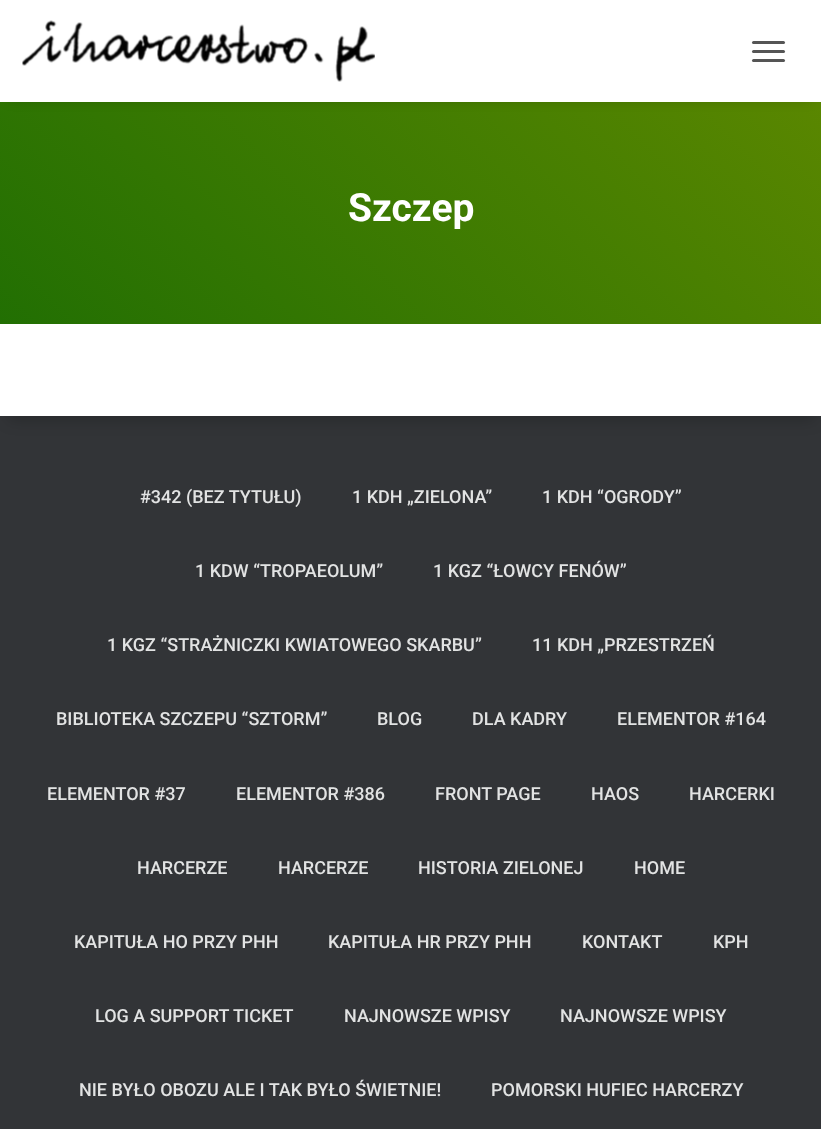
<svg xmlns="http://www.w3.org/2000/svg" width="821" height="1129">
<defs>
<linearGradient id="g1" gradientUnits="userSpaceOnUse" x1="102" y1="516" x2="720" y2="-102"><stop offset="0" stop-color="#1d6d03"/><stop offset="1" stop-color="#5f8900"/></linearGradient>
</defs>
<rect width="100%" height="100%" fill="#323437"/>
<rect y="102" width="821" height="222" fill="url(#g1)"/>
<rect x="9" y="11" width="804" height="84" fill="#0000006b" filter="blur(7.5px)"/>
<rect width="821" height="102" fill="#fff"/>
<image x="22" y="20" width="353" height="62" href="media/1.png"/>
<rect x="752" y="41" width="33" height="3" rx="1.5" fill="#555"/>
<rect x="752" y="50" width="33" height="3" rx="1.5" fill="#555"/>
<rect x="752" y="59" width="33" height="3" rx="1.5" fill="#555"/>
<text x="348" y="221" style="font-family:Roboto;font-size:39px;font-weight:bold;fill:#fff">Szczep</text>
<rect x="8" y="344" width="807" height="76" fill="#00000033" filter="blur(7.5px)"/>
<rect y="324" width="821" height="92" fill="#fff"/>
<text x="140" y="503" style="font-family:Roboto;font-size:18px;font-weight:500;fill:#e2e3e3">#342 (BEZ TYTUŁU)</text>
<text x="352" y="503" style="font-family:Roboto;font-size:18px;font-weight:500;fill:#e2e3e3">1 KDH „ZIELONA”</text>
<text x="542" y="503" style="font-family:Roboto;font-size:18px;font-weight:500;fill:#e2e3e3">1 KDH “OGRODY”</text>
<text x="195" y="577" style="font-family:Roboto;font-size:18px;font-weight:500;fill:#e2e3e3">1 KDW “TROPAEOLUM”</text>
<text x="433" y="577" style="font-family:Roboto;font-size:18px;font-weight:500;fill:#e2e3e3">1 KGZ “ŁOWCY FENÓW”</text>
<text x="107" y="651" style="font-family:Roboto;font-size:18px;font-weight:500;fill:#e2e3e3">1 KGZ “STRAŻNICZKI KWIATOWEGO SKARBU”</text>
<text x="532" y="651" style="font-family:Roboto;font-size:18px;font-weight:500;fill:#e2e3e3">11 KDH „PRZESTRZEŃ</text>
<text x="56" y="725" style="font-family:Roboto;font-size:18px;font-weight:500;fill:#e2e3e3">BIBLIOTEKA SZCZEPU “SZTORM”</text>
<text x="377" y="725" style="font-family:Roboto;font-size:18px;font-weight:500;fill:#e2e3e3">BLOG</text>
<text x="472" y="725" style="font-family:Roboto;font-size:18px;font-weight:500;fill:#e2e3e3">DLA KADRY</text>
<text x="617" y="725" style="font-family:Roboto;font-size:18px;font-weight:500;fill:#e2e3e3">ELEMENTOR #164</text>
<text x="47" y="800" style="font-family:Roboto;font-size:18px;font-weight:500;fill:#e2e3e3">ELEMENTOR #37</text>
<text x="236" y="800" style="font-family:Roboto;font-size:18px;font-weight:500;fill:#e2e3e3">ELEMENTOR #386</text>
<text x="435" y="800" style="font-family:Roboto;font-size:18px;font-weight:500;fill:#e2e3e3">FRONT PAGE</text>
<text x="591" y="800" style="font-family:Roboto;font-size:18px;font-weight:500;fill:#e2e3e3">HAOS</text>
<text x="689" y="800" style="font-family:Roboto;font-size:18px;font-weight:500;fill:#e2e3e3">HARCERKI</text>
<text x="137" y="874" style="font-family:Roboto;font-size:18px;font-weight:500;fill:#e2e3e3">HARCERZE</text>
<text x="278" y="874" style="font-family:Roboto;font-size:18px;font-weight:500;fill:#e2e3e3">HARCERZE</text>
<text x="418" y="874" style="font-family:Roboto;font-size:18px;font-weight:500;fill:#e2e3e3">HISTORIA ZIELONEJ</text>
<text x="634" y="874" style="font-family:Roboto;font-size:18px;font-weight:500;fill:#e2e3e3">HOME</text>
<text x="74" y="948" style="font-family:Roboto;font-size:18px;font-weight:500;fill:#e2e3e3">KAPITUŁA HO PRZY PHH</text>
<text x="328" y="948" style="font-family:Roboto;font-size:18px;font-weight:500;fill:#e2e3e3">KAPITUŁA HR PRZY PHH</text>
<text x="582" y="948" style="font-family:Roboto;font-size:18px;font-weight:500;fill:#e2e3e3">KONTAKT</text>
<text x="713" y="948" style="font-family:Roboto;font-size:18px;font-weight:500;fill:#e2e3e3">KPH</text>
<text x="95" y="1022" style="font-family:Roboto;font-size:18px;font-weight:500;fill:#e2e3e3">LOG A SUPPORT TICKET</text>
<text x="344" y="1022" style="font-family:Roboto;font-size:18px;font-weight:500;fill:#e2e3e3">NAJNOWSZE WPISY</text>
<text x="560" y="1022" style="font-family:Roboto;font-size:18px;font-weight:500;fill:#e2e3e3">NAJNOWSZE WPISY</text>
<text x="79" y="1096" style="font-family:Roboto;font-size:18px;font-weight:500;fill:#e2e3e3">NIE BYŁO OBOZU ALE I TAK BYŁO ŚWIETNIE!</text>
<text x="491" y="1096" style="font-family:Roboto;font-size:18px;font-weight:500;fill:#e2e3e3">POMORSKI HUFIEC HARCERZY</text>
</svg>
